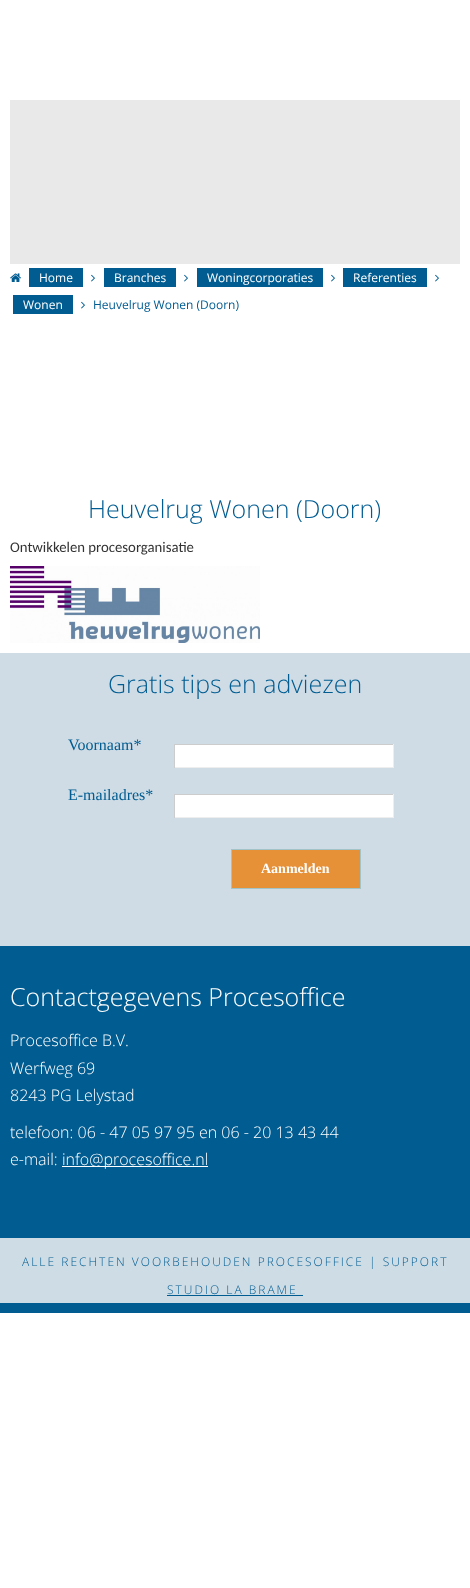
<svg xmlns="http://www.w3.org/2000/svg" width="470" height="1588">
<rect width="100%" height="100%" fill="#fff"/>
<rect x="10" y="100" width="450" height="164" fill="#e9e9e9"/>
<image x="10" y="273" width="11" height="9" href="media/1.png"/>
<rect x="29" y="268" width="54" height="19" fill="#015c91"/>
<text x="39" y="282" style="font-family:Open Sans;font-size:12px;fill:#fff">Home</text>
<image x="91" y="274" width="4" height="8" href="media/2.png"/>
<rect x="104" y="268" width="72" height="19" fill="#015c91"/>
<text x="114" y="282" style="font-family:Open Sans;font-size:12px;fill:#fff">Branches</text>
<image x="184" y="274" width="4" height="8" href="media/2.png"/>
<rect x="197" y="268" width="126" height="19" fill="#015c91"/>
<text x="207" y="282" style="font-family:Open Sans;font-size:12px;fill:#fff">Woningcorporaties</text>
<image x="331" y="274" width="4" height="8" href="media/2.png"/>
<rect x="343" y="268" width="84" height="19" fill="#015c91"/>
<text x="353" y="282" style="font-family:Open Sans;font-size:12px;fill:#fff">Referenties</text>
<image x="435" y="274" width="4" height="8" href="media/2.png"/>
<rect x="13" y="295" width="60" height="19" fill="#015c91"/>
<text x="23" y="309" style="font-family:Open Sans;font-size:12px;fill:#fff">Wonen</text>
<image x="81" y="301" width="4" height="8" href="media/2.png"/>
<text x="93" y="309" style="font-family:Open Sans;font-size:12px;fill:#015c91">Heuvelrug Wonen (Doorn)</text>
<text x="88" y="518" style="font-family:Open Sans;font-size:25px;font-weight:300;fill:#015c91">Heuvelrug Wonen (Doorn)</text>
<text x="10" y="552" style="font-family:Carlito;font-size:14.75px;fill:#333">Ontwikkelen procesorganisatie</text>
<image x="10" y="566" width="250" height="77" href="media/3.png"/>
<rect y="653" width="470" height="293" fill="#cfdce5"/>
<text x="108" y="693" style="font-family:Open Sans;font-size:25px;font-weight:300;fill:#015c91">Gratis tips en adviezen</text>
<text x="68" y="750" style="font-family:Liberation Serif;font-size:16px;fill:#015c91">Voornaam*</text>
<rect x="175" y="745" width="218" height="22" fill="#fff"/>
<rect x="174" y="744" width="220" height="1" fill="#ccc"/>
<rect x="393" y="744" width="1" height="24" fill="#eee"/>
<rect x="174" y="767" width="220" height="1" fill="#eee"/>
<rect x="174" y="744" width="1" height="24" fill="#ccc"/>
<text x="68" y="800" style="font-family:Liberation Serif;font-size:16px;fill:#015c91">E-mailadres*</text>
<rect x="175" y="795" width="218" height="22" fill="#fff"/>
<rect x="174" y="794" width="220" height="1" fill="#ccc"/>
<rect x="393" y="794" width="1" height="24" fill="#eee"/>
<rect x="174" y="817" width="220" height="1" fill="#eee"/>
<rect x="174" y="794" width="1" height="24" fill="#ccc"/>
<rect x="231.5" y="849.5" width="129" height="39" fill="#e69138" stroke="#a2c4c9"/>
<text x="261" y="873" style="font-family:Liberation Serif;font-size:14px;font-weight:bold;fill:#fff">Aanmelden</text>
<rect y="946" width="470" height="367" fill="#015c91"/>
<text x="10" y="1006" style="font-family:Open Sans;font-size:25px;font-weight:300;fill:#fff">Contactgegevens Procesoffice</text>
<text x="10" y="1046" style="font-family:Open Sans;font-size:16px;font-weight:300;fill:#fff">Procesoffice B.V.</text>
<text x="10" y="1074" style="font-family:Open Sans;font-size:16px;font-weight:300;fill:#fff">Werfweg 69</text>
<text x="10" y="1101" style="font-family:Open Sans;font-size:16px;font-weight:300;fill:#fff">8243 PG Lelystad</text>
<text x="10" y="1138" style="font-family:Open Sans;font-size:16px;font-weight:300;fill:#fff">telefoon: 06 - 47 05 97 95 en 06 - 20 13 43 44</text>
<text x="10" y="1165" style="font-family:Open Sans;font-size:16px;font-weight:300;fill:#fff">e-mail:</text>
<rect x="62" y="1166" width="146" height="1" fill="#fff"/>
<text x="62" y="1165" style="font-family:Open Sans;font-size:16px;font-weight:300;fill:#fff">info@procesoffice.nl</text>
<rect y="1238" width="470" height="65" fill="#cedce5"/>
<text x="22" y="1266" style="font-family:Open Sans;font-size:12px;font-weight:300;letter-spacing:2px;fill:#015c91">ALLE RECHTEN VOORBEHOUDEN PROCESOFFICE | SUPPORT</text>
<text x="167" y="1294" style="font-family:Open Sans;font-size:12px;font-weight:300;letter-spacing:2px;fill:#015c91">STUDIO LA BRAME</text>
<rect x="167" y="1295" width="136" height="1" fill="#015c91"/>
</svg>
